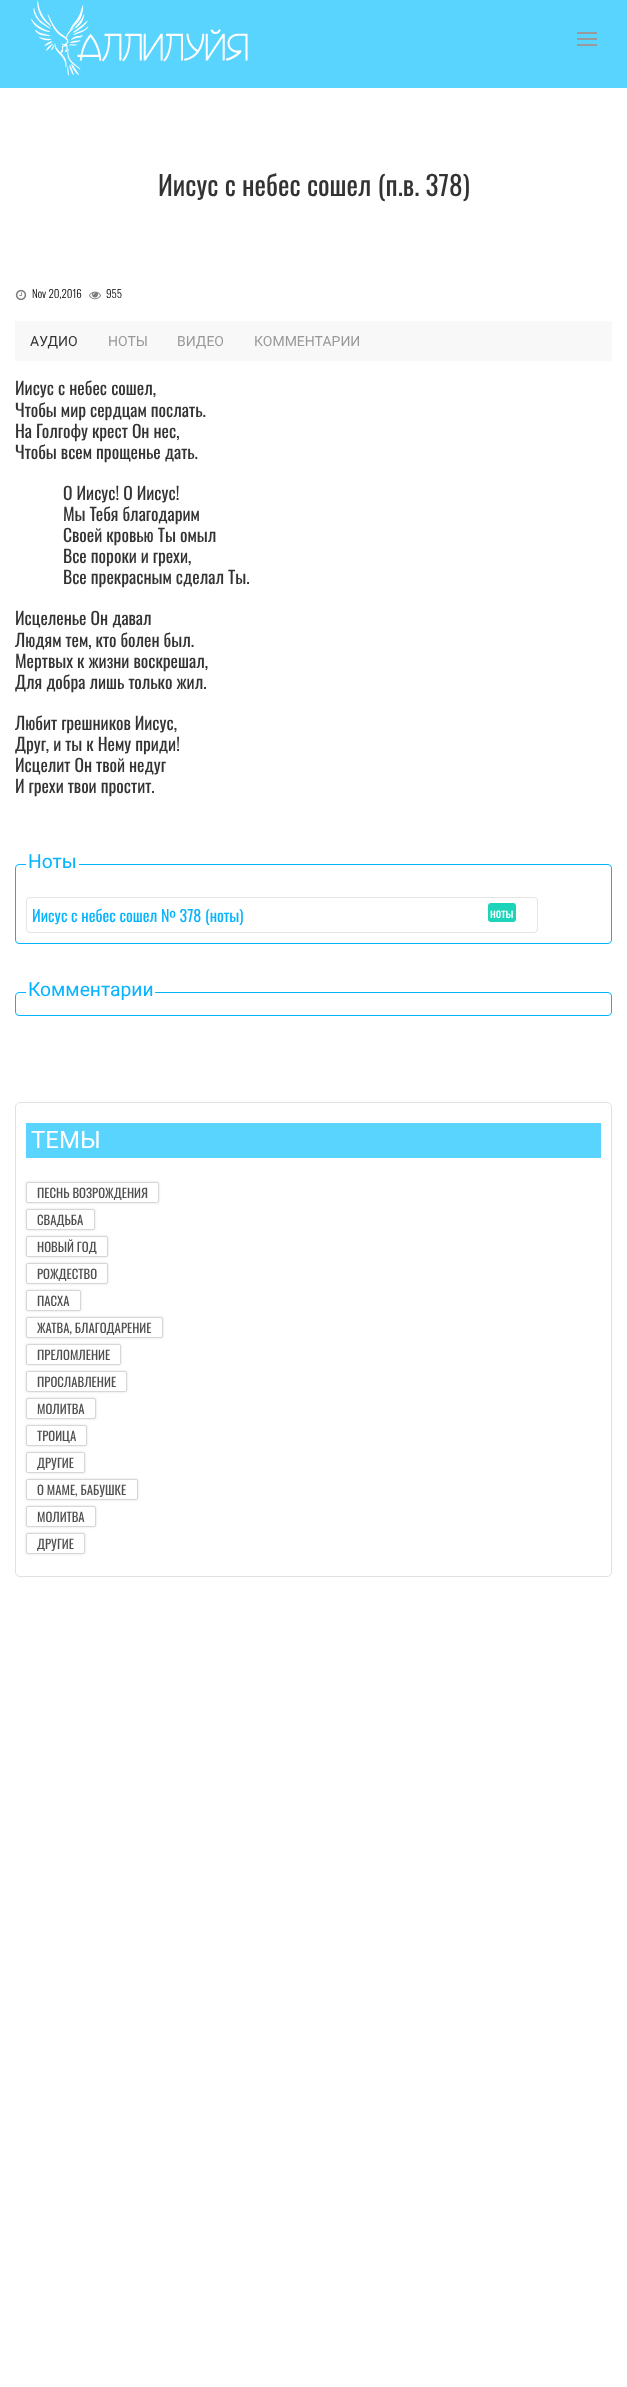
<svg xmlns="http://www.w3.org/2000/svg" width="627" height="2387">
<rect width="100%" height="100%" fill="#fff"/>
<rect width="627" height="88" fill="#58d4ff"/>
<image x="31" y="0" width="217" height="76" href="media/1.png"/>
<rect x="577" y="38" width="20" height="2" fill="#999"/>
<rect x="577" y="32" width="20" height="2" fill="#999"/>
<rect x="577" y="44" width="20" height="2" fill="#999"/>
<text x="158" y="196" style="font-family:Oswald;font-size:27.25px;fill:#333">Иисус с небес сошел (п.в. 378)</text>
<image x="15" y="289" width="12" height="12" href="media/2.png"/>
<text x="32" y="298" style="font-family:Oswald;font-size:11px;font-weight:300;fill:#000">Nov 20,2016</text>
<image x="89" y="291" width="12" height="9" href="media/3.png"/>
<text x="106" y="298" style="font-family:Oswald;font-size:11px;font-weight:300;fill:#000">955</text>
<rect x="15" y="321" width="597" height="40" fill="#f8f8f8"/>
<text x="30" y="346" style="font-family:Roboto;font-size:14px;fill:#333">АУДИО</text>
<text x="108" y="346" style="font-family:Roboto;font-size:14px;fill:#999">НОТЫ</text>
<text x="177" y="346" style="font-family:Roboto;font-size:14px;fill:#999">ВИДЕО</text>
<text x="254" y="346" style="font-family:Roboto;font-size:14px;fill:#999">КОММЕНТАРИИ</text>
<text x="15" y="395" style="font-family:Oswald;font-size:17.6px;fill:#333">Иисус с небес сошел,</text>
<text x="15" y="417" style="font-family:Oswald;font-size:17.6px;fill:#333">Чтобы мир сердцам послать.</text>
<text x="15" y="438" style="font-family:Oswald;font-size:17.6px;fill:#333">На Голгофу крест Он нес,</text>
<text x="15" y="459" style="font-family:Oswald;font-size:17.6px;fill:#333">Чтобы всем прощенье дать.</text>
<text x="63" y="500" style="font-family:Oswald;font-size:17.6px;fill:#333">О Иисус! О Иисус!</text>
<text x="63" y="521" style="font-family:Oswald;font-size:17.6px;fill:#333">Мы Тебя благодарим</text>
<text x="63" y="542" style="font-family:Oswald;font-size:17.6px;fill:#333">Своей кровью Ты омыл</text>
<text x="63" y="563" style="font-family:Oswald;font-size:17.6px;fill:#333">Все пороки и грехи,</text>
<text x="63" y="584" style="font-family:Oswald;font-size:17.6px;fill:#333">Все прекрасным сделал Ты.</text>
<text x="15" y="625" style="font-family:Oswald;font-size:17.6px;fill:#333">Исцеленье Он давал</text>
<text x="15" y="647" style="font-family:Oswald;font-size:17.6px;fill:#333">Людям тем, кто болен был.</text>
<text x="15" y="668" style="font-family:Oswald;font-size:17.6px;fill:#333">Мертвых к жизни воскрешал,</text>
<text x="15" y="689" style="font-family:Oswald;font-size:17.6px;fill:#333">Для добра лишь только жил.</text>
<text x="15" y="730" style="font-family:Oswald;font-size:17.6px;fill:#333">Любит грешников Иисус,</text>
<text x="15" y="751" style="font-family:Oswald;font-size:17.6px;fill:#333">Друг, и ты к Нему приди!</text>
<text x="15" y="772" style="font-family:Oswald;font-size:17.6px;fill:#333">Исцелит Он твой недуг</text>
<text x="15" y="793" style="font-family:Oswald;font-size:17.6px;fill:#333">И грехи твои простит.</text>
<rect x="15.5" y="864.5" width="596" height="79" rx="3.5" fill="none" stroke="#06b3ff"/>
<rect x="26" y="864" width="53" height="1" fill="#fff"/>
<text x="28" y="868" style="font-family:Roboto;font-size:19.25px;fill:#06b3ff">Ноты</text>
<rect x="26.5" y="897.5" width="511" height="35" rx="3.5" fill="none" stroke="#e4e4e4"/>
<text x="32" y="922" style="font-family:Oswald;font-size:16px;fill:#06b3ff">Иисус с небес сошел № 378 (ноты)</text>
<rect x="488" y="903" width="28" height="19" rx="3" fill="#1dd3b9"/>
<text x="490" y="918" style="font-family:Oswald;font-size:12.75px;fill:#fff">ноты</text>
<rect x="15.5" y="992.5" width="596" height="23" rx="3.5" fill="none" stroke="#06b3ff"/>
<rect x="26" y="992" width="129" height="1" fill="#fff"/>
<text x="28" y="996" style="font-family:Roboto;font-size:19.25px;fill:#06b3ff">Комментарии</text>
<rect x="15.5" y="1102.5" width="596" height="474" rx="4.5" fill="none" stroke="#e1e1e1"/>
<rect x="26" y="1123" width="575" height="35" fill="#58d4ff"/>
<text x="31" y="1148" style="font-family:Roboto;font-size:24px;fill:#fff">ТЕМЫ</text>
<rect x="26" y="1182" width="133" height="21" rx="2" fill="#dcdcdc" filter="blur(1px)"/>
<rect x="26.5" y="1182.5" width="132" height="20" rx="1.5" fill="#fff" stroke="#d7d7d7"/>
<text x="37" y="1198" style="font-family:Oswald;font-size:12.75px;fill:#4f4f4f">ПЕСНЬ ВОЗРОЖДЕНИЯ</text>
<rect x="26" y="1209" width="69" height="21" rx="2" fill="#dcdcdc" filter="blur(1px)"/>
<rect x="26.5" y="1209.5" width="68" height="20" rx="1.5" fill="#fff" stroke="#d7d7d7"/>
<text x="37" y="1225" style="font-family:Oswald;font-size:12.75px;fill:#4f4f4f">СВАДЬБА</text>
<rect x="26" y="1236" width="82" height="21" rx="2" fill="#dcdcdc" filter="blur(1px)"/>
<rect x="26.5" y="1236.5" width="81" height="20" rx="1.5" fill="#fff" stroke="#d7d7d7"/>
<text x="37" y="1252" style="font-family:Oswald;font-size:12.75px;fill:#4f4f4f">НОВЫЙ ГОД</text>
<rect x="26" y="1263" width="82" height="21" rx="2" fill="#dcdcdc" filter="blur(1px)"/>
<rect x="26.5" y="1263.5" width="81" height="20" rx="1.5" fill="#fff" stroke="#d7d7d7"/>
<text x="37" y="1279" style="font-family:Oswald;font-size:12.75px;fill:#4f4f4f">РОЖДЕСТВО</text>
<rect x="26" y="1290" width="55" height="21" rx="2" fill="#dcdcdc" filter="blur(1px)"/>
<rect x="26.5" y="1290.5" width="54" height="20" rx="1.5" fill="#fff" stroke="#d7d7d7"/>
<text x="37" y="1306" style="font-family:Oswald;font-size:12.75px;fill:#4f4f4f">ПАСХА</text>
<rect x="26" y="1317" width="137" height="21" rx="2" fill="#dcdcdc" filter="blur(1px)"/>
<rect x="26.5" y="1317.5" width="136" height="20" rx="1.5" fill="#fff" stroke="#d7d7d7"/>
<text x="37" y="1333" style="font-family:Oswald;font-size:12.75px;fill:#4f4f4f">ЖАТВА, БЛАГОДАРЕНИЕ</text>
<rect x="26" y="1344" width="95" height="21" rx="2" fill="#dcdcdc" filter="blur(1px)"/>
<rect x="26.5" y="1344.5" width="94" height="20" rx="1.5" fill="#fff" stroke="#d7d7d7"/>
<text x="37" y="1360" style="font-family:Oswald;font-size:12.75px;fill:#4f4f4f">ПРЕЛОМЛЕНИЕ</text>
<rect x="26" y="1371" width="101" height="21" rx="2" fill="#dcdcdc" filter="blur(1px)"/>
<rect x="26.5" y="1371.5" width="100" height="20" rx="1.5" fill="#fff" stroke="#d7d7d7"/>
<text x="37" y="1387" style="font-family:Oswald;font-size:12.75px;fill:#4f4f4f">ПРОСЛАВЛЕНИЕ</text>
<rect x="26" y="1398" width="70" height="21" rx="2" fill="#dcdcdc" filter="blur(1px)"/>
<rect x="26.5" y="1398.5" width="69" height="20" rx="1.5" fill="#fff" stroke="#d7d7d7"/>
<text x="37" y="1414" style="font-family:Oswald;font-size:12.75px;fill:#4f4f4f">МОЛИТВА</text>
<rect x="26" y="1425" width="61" height="21" rx="2" fill="#dcdcdc" filter="blur(1px)"/>
<rect x="26.5" y="1425.5" width="60" height="20" rx="1.5" fill="#fff" stroke="#d7d7d7"/>
<text x="37" y="1441" style="font-family:Oswald;font-size:12.75px;fill:#4f4f4f">ТРОИЦА</text>
<rect x="26" y="1452" width="59" height="21" rx="2" fill="#dcdcdc" filter="blur(1px)"/>
<rect x="26.5" y="1452.5" width="58" height="20" rx="1.5" fill="#fff" stroke="#d7d7d7"/>
<text x="37" y="1468" style="font-family:Oswald;font-size:12.75px;fill:#4f4f4f">ДРУГИЕ</text>
<rect x="26" y="1479" width="112" height="21" rx="2" fill="#dcdcdc" filter="blur(1px)"/>
<rect x="26.5" y="1479.5" width="111" height="20" rx="1.5" fill="#fff" stroke="#d7d7d7"/>
<text x="37" y="1495" style="font-family:Oswald;font-size:12.75px;fill:#4f4f4f">О МАМЕ, БАБУШКЕ</text>
<rect x="26" y="1506" width="70" height="21" rx="2" fill="#dcdcdc" filter="blur(1px)"/>
<rect x="26.5" y="1506.5" width="69" height="20" rx="1.5" fill="#fff" stroke="#d7d7d7"/>
<text x="37" y="1522" style="font-family:Oswald;font-size:12.75px;fill:#4f4f4f">МОЛИТВА</text>
<rect x="26" y="1533" width="59" height="21" rx="2" fill="#dcdcdc" filter="blur(1px)"/>
<rect x="26.5" y="1533.5" width="58" height="20" rx="1.5" fill="#fff" stroke="#d7d7d7"/>
<text x="37" y="1549" style="font-family:Oswald;font-size:12.75px;fill:#4f4f4f">ДРУГИЕ</text>
</svg>
